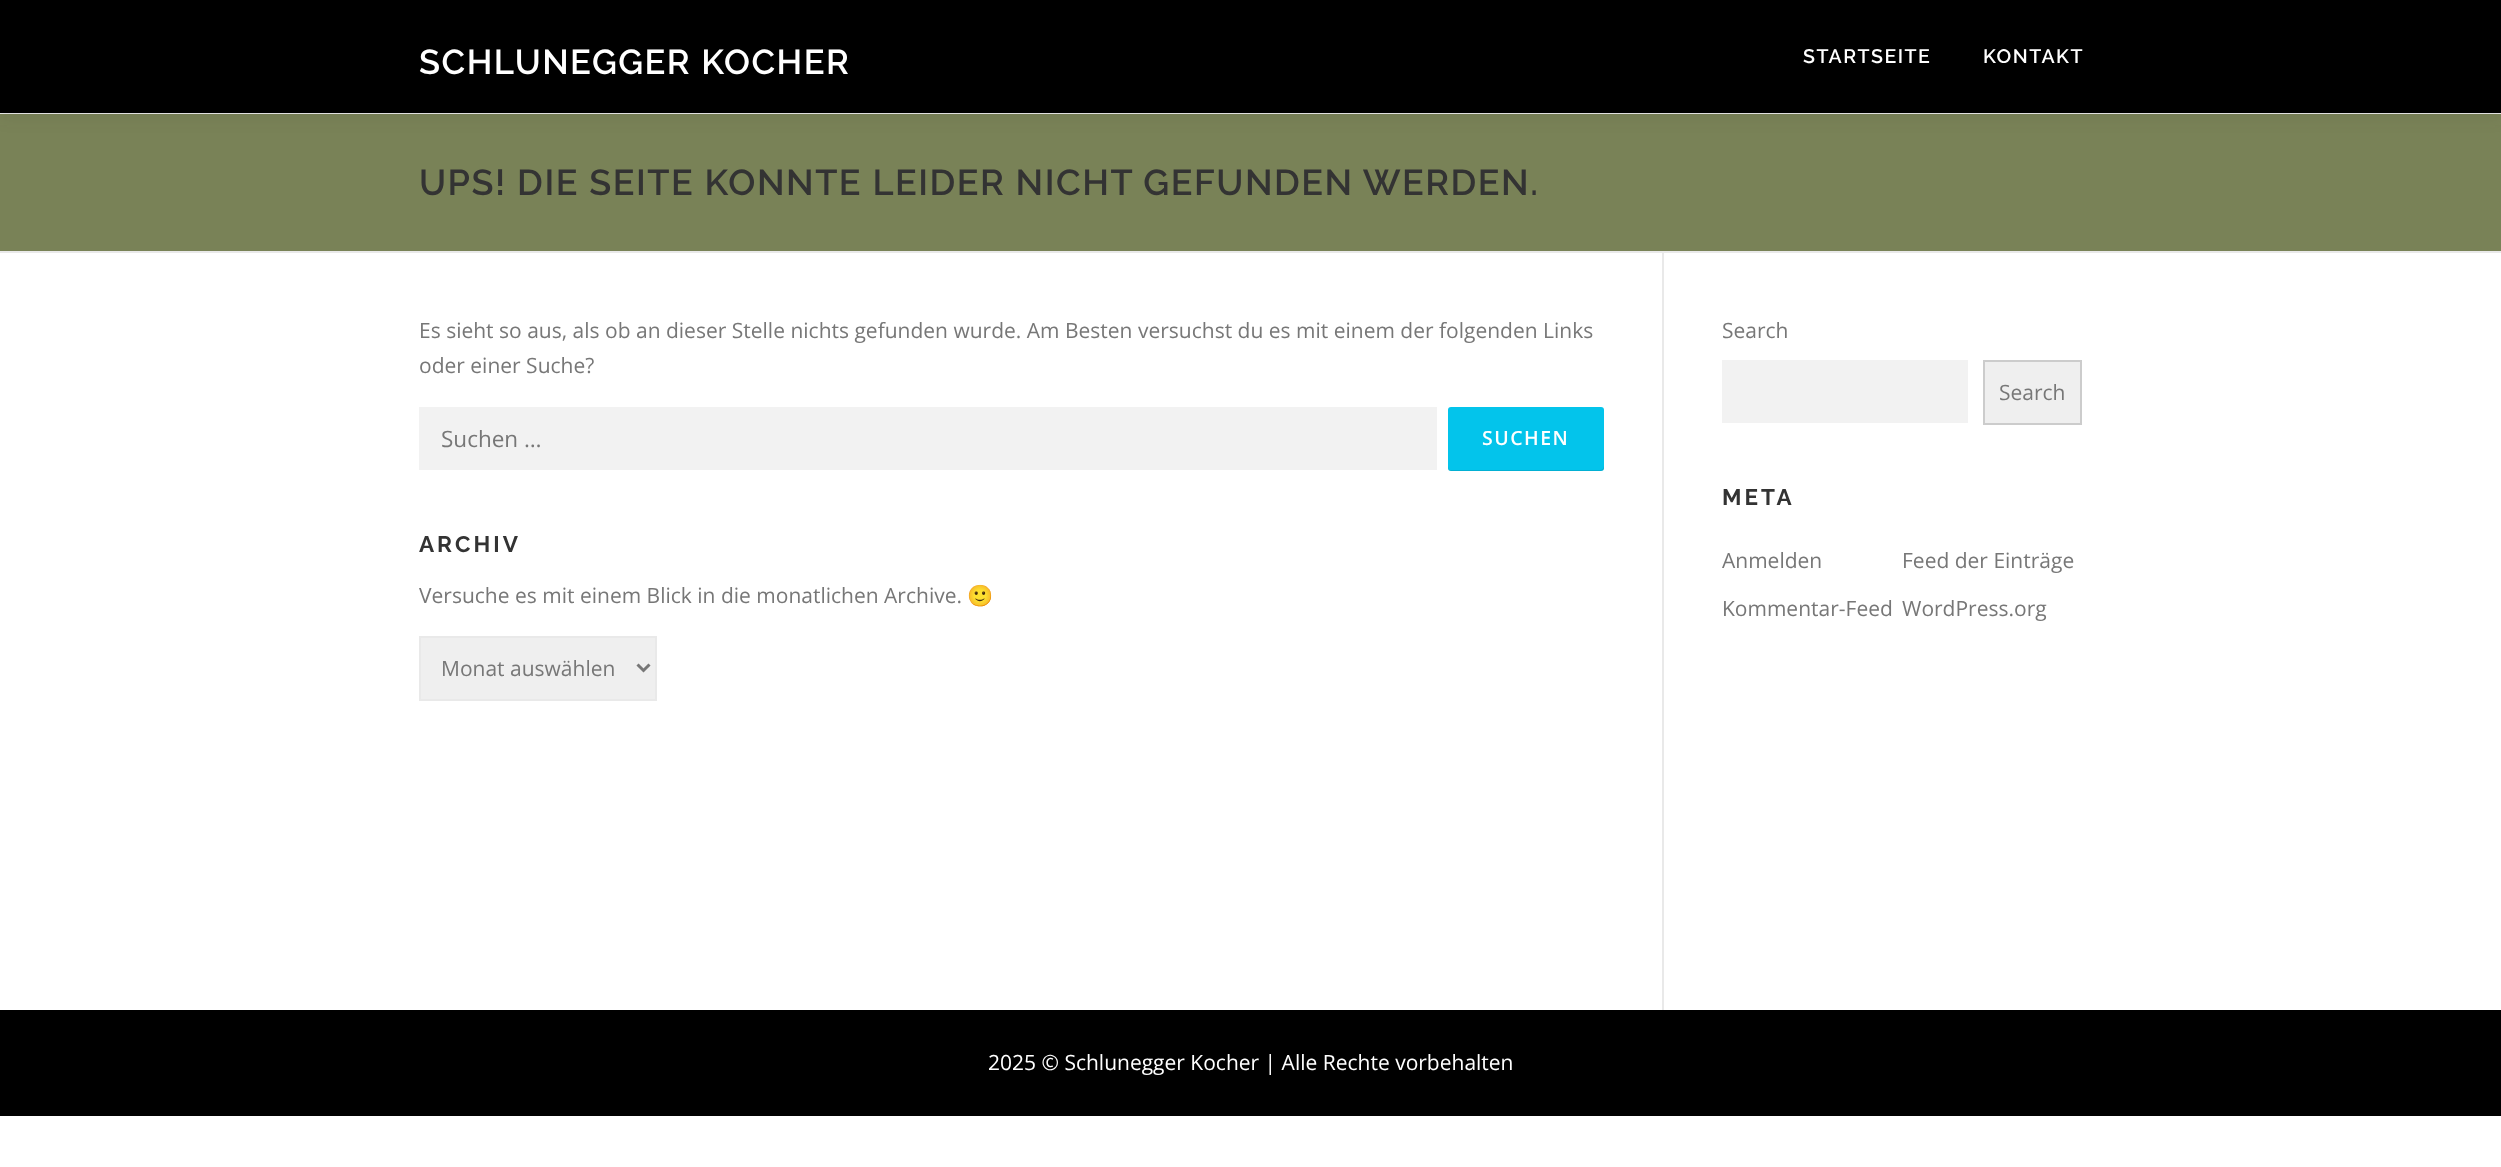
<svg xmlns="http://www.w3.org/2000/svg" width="2501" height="1167">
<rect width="100%" height="100%" fill="#fff"/>
<rect y="113" width="2501" height="1" fill="#e9e9e9"/>
<rect y="114" width="2501" height="137" fill="#798257"/>
<rect y="8" width="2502" height="112" fill="#3232320f" filter="blur(7.5px)"/>
<rect width="2501" height="113" fill="#000"/>
<text x="419" y="74" style="font-family:Raleway;font-size:34.5px;font-weight:600;letter-spacing:1.5px;fill:#fff">SCHLUNEGGER KOCHER</text>
<text x="1803" y="63" style="font-family:Raleway;font-size:19.5px;font-weight:600;letter-spacing:1.5px;fill:#fff">STARTSEITE</text>
<text x="1983" y="63" style="font-family:Raleway;font-size:19.5px;font-weight:600;letter-spacing:1.5px;fill:#fff">KONTAKT</text>
<rect y="251" width="2501" height="2" fill="#e9e9e9"/>
<text x="419" y="195" style="font-family:Raleway;font-size:36px;font-weight:600;letter-spacing:1.5px;fill:#333">UPS! DIE SEITE KONNTE LEIDER NICHT GEFUNDEN WERDEN.</text>
<text x="419" y="338" style="font-family:Open Sans;font-size:21px;fill:#777">Es sieht so aus, als ob an dieser Stelle nichts gefunden wurde. Am Besten versuchst du es mit einem der folgenden Links</text>
<text x="419" y="373" style="font-family:Open Sans;font-size:21px;fill:#777">oder einer Suche?</text>
<rect x="419" y="407" width="1018" height="63" fill="#f2f2f2"/>
<text x="441" y="447" style="font-family:Open Sans;font-size:22.5px;fill:#777">Suchen …</text>
<rect x="1448" y="407" width="156" height="64" rx="3" fill="#03c4eb"/>
<path d="M1448 466v2c0 2 1 3 3 3h150c2 0 3-1 3-3v-2c0 2-2 4-4 4h-150c-1 0-2-2-2-4z" fill="#0000001a"/>
<text x="1482" y="445" style="font-family:Open Sans;font-size:19.5px;font-weight:600;letter-spacing:1.5px;fill:#fff">SUCHEN</text>
<text x="419" y="552" style="font-family:Raleway;font-size:22.5px;font-weight:bold;letter-spacing:3px;fill:#333">ARCHIV</text>
<text x="419" y="603" style="font-family:Open Sans;font-size:21px;fill:#777">Versuche es mit einem Blick in die monatlichen Archive.</text>
<text x="967" y="603" style="font-family:Noto Color Emoji;font-size:21px;fill:#777">🙂</text>
<rect x="420" y="637" width="236" height="63" fill="#efefef" stroke="#e9e9e9" stroke-width="2"/>
<path d="M637.5 664.5l6 6l6-6" fill="none" stroke="#777" stroke-width="3"/>
<text x="441" y="676" style="font-family:Open Sans;font-size:21px;fill:#777">Monat auswählen</text>
<rect x="1662" y="252" width="2" height="758" fill="#e9e9e9"/>
<text x="1722" y="338" style="font-family:Open Sans;font-size:21px;fill:#777">Search</text>
<rect x="1722" y="360" width="246" height="63" fill="#f2f2f2"/>
<rect x="1984" y="361" width="97" height="63" fill="#efefef" stroke="#ccc" stroke-width="2"/>
<text x="1999" y="400" style="font-family:Open Sans;font-size:21px;fill:#777">Search</text>
<text x="1722" y="505" style="font-family:Raleway;font-size:22.5px;font-weight:bold;letter-spacing:3px;fill:#333">META</text>
<text x="1722" y="568" style="font-family:Open Sans;font-size:21px;fill:#777">Anmelden</text>
<text x="1902" y="568" style="font-family:Open Sans;font-size:21px;fill:#777">Feed der Einträge</text>
<text x="1722" y="616" style="font-family:Open Sans;font-size:21px;fill:#777">Kommentar-Feed</text>
<text x="1902" y="616" style="font-family:Open Sans;font-size:21px;fill:#777">WordPress.org</text>
<rect y="1010" width="2501" height="106" fill="#000"/>
<text x="988" y="1070" style="font-family:Open Sans;font-size:21px;fill:#fff">2025 © Schlunegger Kocher | Alle Rechte vorbehalten</text>
</svg>
